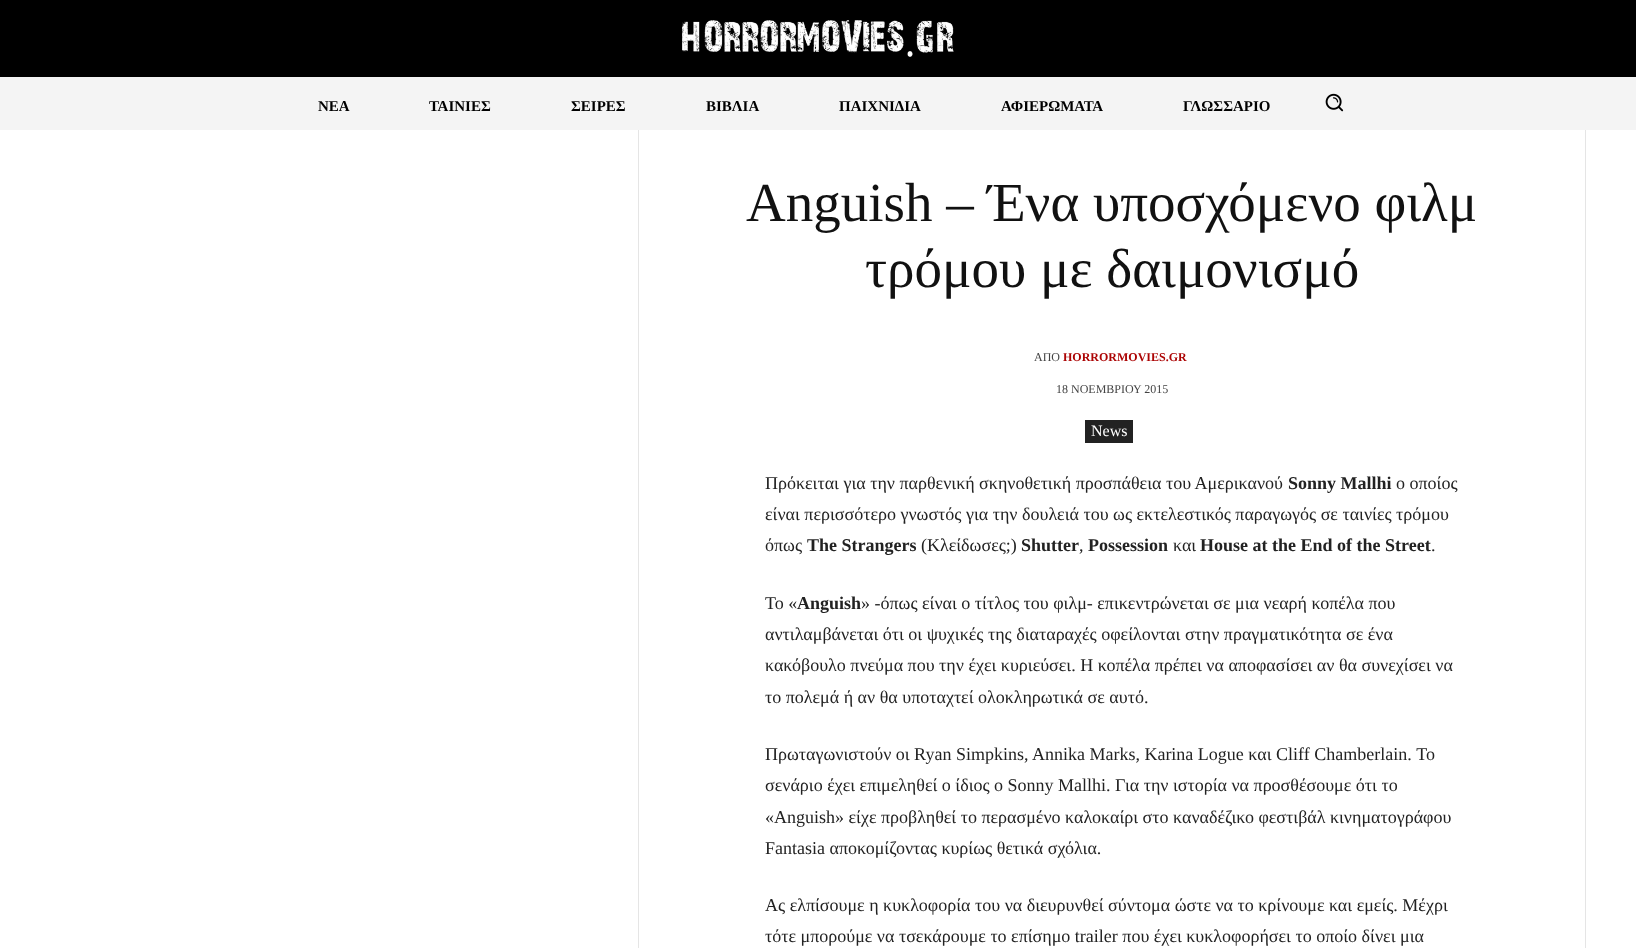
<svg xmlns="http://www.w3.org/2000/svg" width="1636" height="948">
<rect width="100%" height="100%" fill="#fff"/>
<rect width="1636" height="77" fill="#000"/>
<image x="682" y="20" width="272" height="37" href="media/1.png"/>
<rect y="77" width="1636" height="53" fill="#f4f4f4"/>
<text x="318" y="111" style="font-family:Liberation Serif;font-size:15px;font-weight:bold;fill:#000">ΝΕΑ</text>
<text x="429" y="111" style="font-family:Liberation Serif;font-size:15px;font-weight:bold;fill:#000">ΤΑΙΝΙΕΣ</text>
<text x="571" y="111" style="font-family:Liberation Serif;font-size:15px;font-weight:bold;fill:#000">ΣΕΙΡΕΣ</text>
<text x="706" y="111" style="font-family:Liberation Serif;font-size:15px;font-weight:bold;fill:#000">ΒΙΒΛΙΑ</text>
<text x="839" y="111" style="font-family:Liberation Serif;font-size:15px;font-weight:bold;fill:#000">ΠΑΙΧΝΙΔΙΑ</text>
<text x="1001" y="111" style="font-family:Liberation Serif;font-size:15px;font-weight:bold;fill:#000">ΑΦΙΕΡΩΜΑΤΑ</text>
<text x="1183" y="111" style="font-family:Liberation Serif;font-size:15px;font-weight:bold;fill:#000">ΓΛΩΣΣΑΡΙΟ</text>
<image x="1325" y="93" width="19" height="19" href="media/2.png"/>
<rect x="1585" y="130" width="1" height="818" fill="#e5e5e5"/>
<rect x="638" y="130" width="1" height="818" fill="#e5e5e5"/>
<text x="746" y="221" style="font-family:Liberation Serif;font-size:55px;fill:#111">Anguish – Ένα υποσχόμενο φιλμ</text>
<text x="865" y="287" style="font-family:Liberation Serif;font-size:55px;fill:#111">τρόμου με δαιμονισμό</text>
<text x="1034" y="361" style="font-family:Liberation Serif;font-size:12px;fill:#444">ΑΠΟ</text>
<text x="1063" y="361" style="font-family:Liberation Serif;font-size:12px;font-weight:bold;fill:#ac0404">HORRORMOVIES.GR</text>
<text x="1056" y="393" style="font-family:Liberation Serif;font-size:12px;fill:#444">18 ΝΟΕΜΒΡΙΟΥ 2015</text>
<rect x="1085" y="420" width="48" height="23" fill="#222"/>
<text x="1091" y="436" style="font-family:Liberation Serif;font-size:16px;fill:#fff">News</text>
<text x="765" y="489" style="font-family:Liberation Serif;font-size:18px;fill:#222">Πρόκειται για την παρθενική σκηνοθετική προσπάθεια του Αμερικανού</text>
<text x="1288" y="489" style="font-family:Liberation Serif;font-size:18px;font-weight:bold;fill:#222">Sonny Mallhi</text>
<text x="1396" y="489" style="font-family:Liberation Serif;font-size:18px;fill:#222">ο οποίος</text>
<text x="765" y="520" style="font-family:Liberation Serif;font-size:18px;fill:#222">είναι περισσότερο γνωστός για την δουλειά του ως εκτελεστικός παραγωγός σε ταινίες τρόμου</text>
<text x="765" y="551" style="font-family:Liberation Serif;font-size:18px;fill:#222">όπως</text>
<text x="807" y="551" style="font-family:Liberation Serif;font-size:18px;font-weight:bold;fill:#222">The Strangers</text>
<text x="921" y="551" style="font-family:Liberation Serif;font-size:18px;fill:#222">(Κλείδωσες;)</text>
<text x="1021" y="551" style="font-family:Liberation Serif;font-size:18px;font-weight:bold;fill:#222">Shutter</text>
<text x="1079" y="551" style="font-family:Liberation Serif;font-size:18px;fill:#222">,</text>
<text x="1088" y="551" style="font-family:Liberation Serif;font-size:18px;font-weight:bold;fill:#222">Possession</text>
<text x="1173" y="551" style="font-family:Liberation Serif;font-size:18px;fill:#222">και</text>
<text x="1200" y="551" style="font-family:Liberation Serif;font-size:18px;font-weight:bold;fill:#222">House at the End of the Street</text>
<text x="1431" y="551" style="font-family:Liberation Serif;font-size:18px;fill:#222">.</text>
<text x="765" y="609" style="font-family:Liberation Serif;font-size:18px;fill:#222">To «</text>
<text x="797" y="609" style="font-family:Liberation Serif;font-size:18px;font-weight:bold;fill:#222">Anguish</text>
<text x="861" y="609" style="font-family:Liberation Serif;font-size:18px;fill:#222">» -όπως είναι ο τίτλος του φιλμ- επικεντρώνεται σε μια νεαρή κοπέλα που</text>
<text x="765" y="640" style="font-family:Liberation Serif;font-size:18px;fill:#222">αντιλαμβάνεται ότι οι ψυχικές της διαταραχές οφείλονται στην πραγματικότητα σε ένα</text>
<text x="765" y="671" style="font-family:Liberation Serif;font-size:18px;fill:#222">κακόβουλο πνεύμα που την έχει κυριεύσει. Η κοπέλα πρέπει να αποφασίσει αν θα συνεχίσει να</text>
<text x="765" y="703" style="font-family:Liberation Serif;font-size:18px;fill:#222">το πολεμά ή αν θα υποταχτεί ολοκληρωτικά σε αυτό.</text>
<text x="765" y="760" style="font-family:Liberation Serif;font-size:18px;fill:#222">Πρωταγωνιστούν οι Ryan Simpkins, Annika Marks, Karina Logue και Cliff Chamberlain. Το</text>
<text x="765" y="791" style="font-family:Liberation Serif;font-size:18px;fill:#222">σενάριο έχει επιμεληθεί ο ίδιος ο Sonny Mallhi. Για την ιστορία να προσθέσουμε ότι το</text>
<text x="765" y="823" style="font-family:Liberation Serif;font-size:18px;fill:#222">«Anguish» είχε προβληθεί το περασμένο καλοκαίρι στο καναδέζικο φεστιβάλ κινηματογράφου</text>
<text x="765" y="854" style="font-family:Liberation Serif;font-size:18px;fill:#222">Fantasia αποκομίζοντας κυρίως θετικά σχόλια.</text>
<text x="765" y="911" style="font-family:Liberation Serif;font-size:18px;fill:#222">Ας ελπίσουμε η κυκλοφορία του να διευρυνθεί σύντομα ώστε να το κρίνουμε και εμείς. Μέχρι</text>
<text x="765" y="942" style="font-family:Liberation Serif;font-size:18px;fill:#222">τότε μπορούμε να τσεκάρουμε το επίσημο trailer που έχει κυκλοφορήσει το οποίο δίνει μια</text>
</svg>
